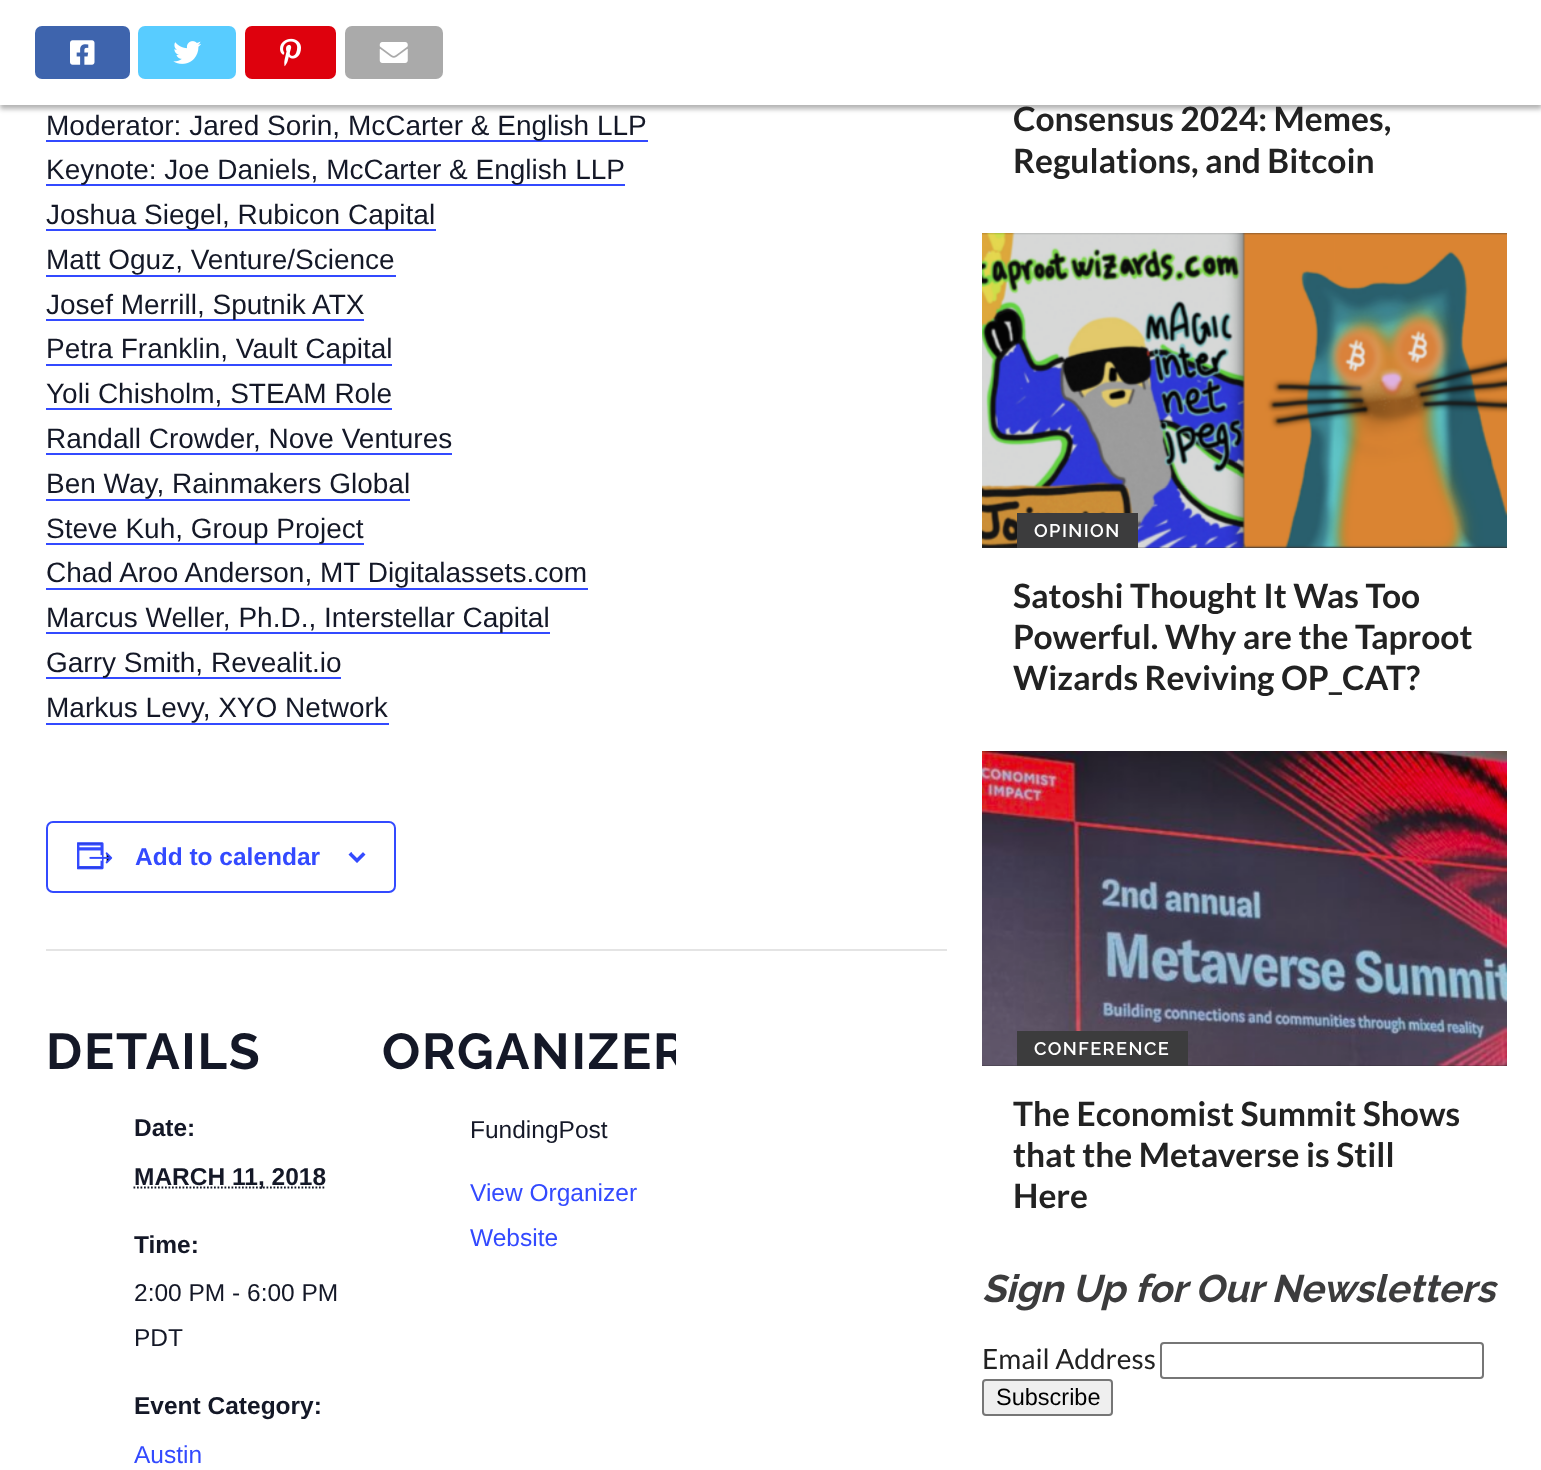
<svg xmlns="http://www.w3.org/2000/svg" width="1541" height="1470">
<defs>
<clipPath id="clip1"><rect x="382" y="1022" width="294" height="60"/></clipPath>
</defs>
<rect width="100%" height="100%" fill="#fff"/>
<rect y="4" width="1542" height="105" fill="#0000004d" filter="blur(2.5px)"/>
<rect width="1541" height="105" fill="#fff"/>
<rect x="35" y="26" width="95" height="53" rx="7" fill="#3e64ad"/>
<image x="70" y="40" width="25" height="25" href="media/1.png"/>
<rect x="138" y="26" width="98" height="53" rx="7" fill="#58ccff"/>
<image x="173" y="41" width="28" height="23" href="media/2.png"/>
<rect x="245" y="26" width="91" height="53" rx="7" fill="#de010d"/>
<image x="280" y="38" width="21" height="29" href="media/3.png"/>
<rect x="345" y="26" width="98" height="53" rx="7" fill="#aaa"/>
<image x="379" y="42" width="29" height="21" href="media/4.png"/>
<rect x="46" y="140" width="602" height="2" fill="#334aff"/>
<text x="46" y="135" style="font-family:Liberation Sans;font-size:28px;fill:#141827">Moderator: Jared Sorin, McCarter &amp; English LLP</text>
<rect x="46" y="184" width="579" height="2" fill="#334aff"/>
<text x="46" y="179" style="font-family:Liberation Sans;font-size:28px;fill:#141827">Keynote: Joe Daniels, McCarter &amp; English LLP</text>
<rect x="46" y="229" width="390" height="2" fill="#334aff"/>
<text x="46" y="224" style="font-family:Liberation Sans;font-size:28px;fill:#141827">Joshua Siegel, Rubicon Capital</text>
<text x="46" y="269" style="font-family:Liberation Sans;font-size:28px;fill:#141827">Matt Oguz, Venture/Science</text>
<rect x="46" y="275" width="350" height="2" fill="#334aff"/>
<rect x="46" y="319" width="318" height="2" fill="#334aff"/>
<text x="46" y="314" style="font-family:Liberation Sans;font-size:28px;fill:#141827">Josef Merrill, Sputnik ATX</text>
<text x="46" y="358" style="font-family:Liberation Sans;font-size:28px;fill:#141827">Petra Franklin, Vault Capital</text>
<rect x="46" y="364" width="346" height="2" fill="#334aff"/>
<text x="46" y="403" style="font-family:Liberation Sans;font-size:28px;fill:#141827">Yoli Chisholm, STEAM Role</text>
<rect x="46" y="408" width="346" height="2" fill="#334aff"/>
<text x="46" y="448" style="font-family:Liberation Sans;font-size:28px;fill:#141827">Randall Crowder, Nove Ventures</text>
<rect x="46" y="453" width="406" height="2" fill="#334aff"/>
<text x="46" y="493" style="font-family:Liberation Sans;font-size:28px;fill:#141827">Ben Way, Rainmakers Global</text>
<rect x="46" y="499" width="364" height="2" fill="#334aff"/>
<rect x="46" y="543" width="318" height="2" fill="#334aff"/>
<text x="46" y="538" style="font-family:Liberation Sans;font-size:28px;fill:#141827">Steve Kuh, Group Project</text>
<text x="46" y="582" style="font-family:Liberation Sans;font-size:28px;fill:#141827">Chad Aroo Anderson, MT Digitalassets.com</text>
<rect x="46" y="588" width="542" height="2" fill="#334aff"/>
<rect x="46" y="632" width="504" height="2" fill="#334aff"/>
<text x="46" y="627" style="font-family:Liberation Sans;font-size:28px;fill:#141827">Marcus Weller, Ph.D., Interstellar Capital</text>
<rect x="46" y="677" width="295" height="2" fill="#334aff"/>
<text x="46" y="672" style="font-family:Liberation Sans;font-size:28px;fill:#141827">Garry Smith, Revealit.io</text>
<text x="46" y="717" style="font-family:Liberation Sans;font-size:28px;fill:#141827">Markus Levy, XYO Network</text>
<rect x="46" y="723" width="343" height="2" fill="#334aff"/>
<rect x="47" y="822" width="348" height="70" rx="6" fill="none" stroke="#334aff" stroke-width="2"/>
<image x="77" y="842" width="36" height="28" href="media/5.png"/>
<text x="135" y="865" style="font-family:Liberation Sans;font-size:24.5px;font-weight:bold;fill:#334aff">Add to calendar</text>
<image x="348" y="852" width="18" height="11" href="media/6.png"/>
<rect x="46" y="949" width="901" height="2" fill="#e4e4e4"/>
<text x="46" y="1069" style="font-family:Raleway;font-size:50.5px;font-weight:bold;letter-spacing:1.75px;fill:#141827">DETAILS</text>
<text x="134" y="1136" style="font-family:Liberation Sans;font-size:24.5px;font-weight:bold;fill:#141827">Date:</text>
<path d="M133.5 1187.5h192" fill="none" stroke="#141827" stroke-width="1.8" stroke-dasharray="1.75 1.75"/>
<text x="134" y="1185" style="font-family:Liberation Sans;font-size:24.5px;font-weight:bold;fill:#141827">MARCH 11, 2018</text>
<text x="134" y="1253" style="font-family:Liberation Sans;font-size:24.5px;font-weight:bold;fill:#141827">Time:</text>
<text x="134" y="1301" style="font-family:Liberation Sans;font-size:24.5px;fill:#141827">2:00 PM - 6:00 PM</text>
<text x="134" y="1346" style="font-family:Liberation Sans;font-size:24.5px;fill:#141827">PDT</text>
<text x="134" y="1414" style="font-family:Liberation Sans;font-size:24.5px;font-weight:bold;fill:#141827">Event Category:</text>
<text x="134" y="1463" style="font-family:Liberation Sans;font-size:24.5px;fill:#334aff">Austin</text>
<g clip-path="url(#clip1)">
<text x="382" y="1069" style="font-family:Raleway;font-size:50.5px;font-weight:bold;letter-spacing:1.75px;fill:#141827">ORGANIZER</text>
</g>
<text x="470" y="1138" style="font-family:Liberation Sans;font-size:24.5px;fill:#141827">FundingPost</text>
<text x="470" y="1201" style="font-family:Liberation Sans;font-size:24.5px;fill:#334aff">View Organizer</text>
<text x="470" y="1246" style="font-family:Liberation Sans;font-size:24.5px;fill:#334aff">Website</text>
<text x="1013" y="131" style="font-family:Lato;font-size:33.6px;font-weight:bold;fill:#222">Consensus 2024: Memes,</text>
<text x="1013" y="173" style="font-family:Lato;font-size:33.6px;font-weight:bold;fill:#222">Regulations, and Bitcoin</text>
<rect x="982" y="233" width="525" height="315" fill="#222"/>
<image x="982" y="233" width="525" height="315" href="media/7.png"/>
<rect x="1017" y="513" width="121" height="35" fill="#3c3c3d"/>
<text x="1034" y="537" style="font-family:Raleway;font-size:18.25px;font-weight:600;letter-spacing:1.4px;fill:#fff">OPINION</text>
<text x="1013" y="608" style="font-family:Lato;font-size:33.6px;font-weight:bold;fill:#222">Satoshi Thought It Was Too</text>
<text x="1013" y="649" style="font-family:Lato;font-size:33.6px;font-weight:bold;fill:#222">Powerful. Why are the Taproot</text>
<text x="1013" y="690" style="font-family:Lato;font-size:33.6px;font-weight:bold;fill:#222">Wizards Reviving OP_CAT?</text>
<rect x="982" y="751" width="525" height="315" fill="#222"/>
<image x="982" y="751" width="525" height="315" href="media/8.png"/>
<rect x="1017" y="1031" width="171" height="35" fill="#3c3c3d"/>
<text x="1034" y="1055" style="font-family:Raleway;font-size:18.25px;font-weight:600;letter-spacing:1.4px;fill:#fff">CONFERENCE</text>
<text x="1013" y="1126" style="font-family:Lato;font-size:33.6px;font-weight:bold;fill:#222">The Economist Summit Shows</text>
<text x="1013" y="1167" style="font-family:Lato;font-size:33.6px;font-weight:bold;fill:#222">that the Metaverse is Still</text>
<text x="1013" y="1208" style="font-family:Lato;font-size:33.6px;font-weight:bold;fill:#222">Here</text>
<text x="982" y="1302" style="font-family:Raleway;font-size:38.5px;font-weight:bold;font-style:italic;fill:#3c3c3d">Sign Up for Our Newsletters</text>
<text x="982" y="1369" style="font-family:Lato;font-size:28px;fill:#222">Email Address</text>
<rect x="1161" y="1343" width="322" height="35" rx="3" fill="none" stroke="#767676" stroke-width="2"/>
<rect x="983" y="1380" width="129" height="35" rx="3" fill="#efefef" stroke="#767676" stroke-width="2"/>
<text x="996" y="1405" style="font-family:Liberation Sans;font-size:23.5px;fill:#000">Subscribe</text>
</svg>
